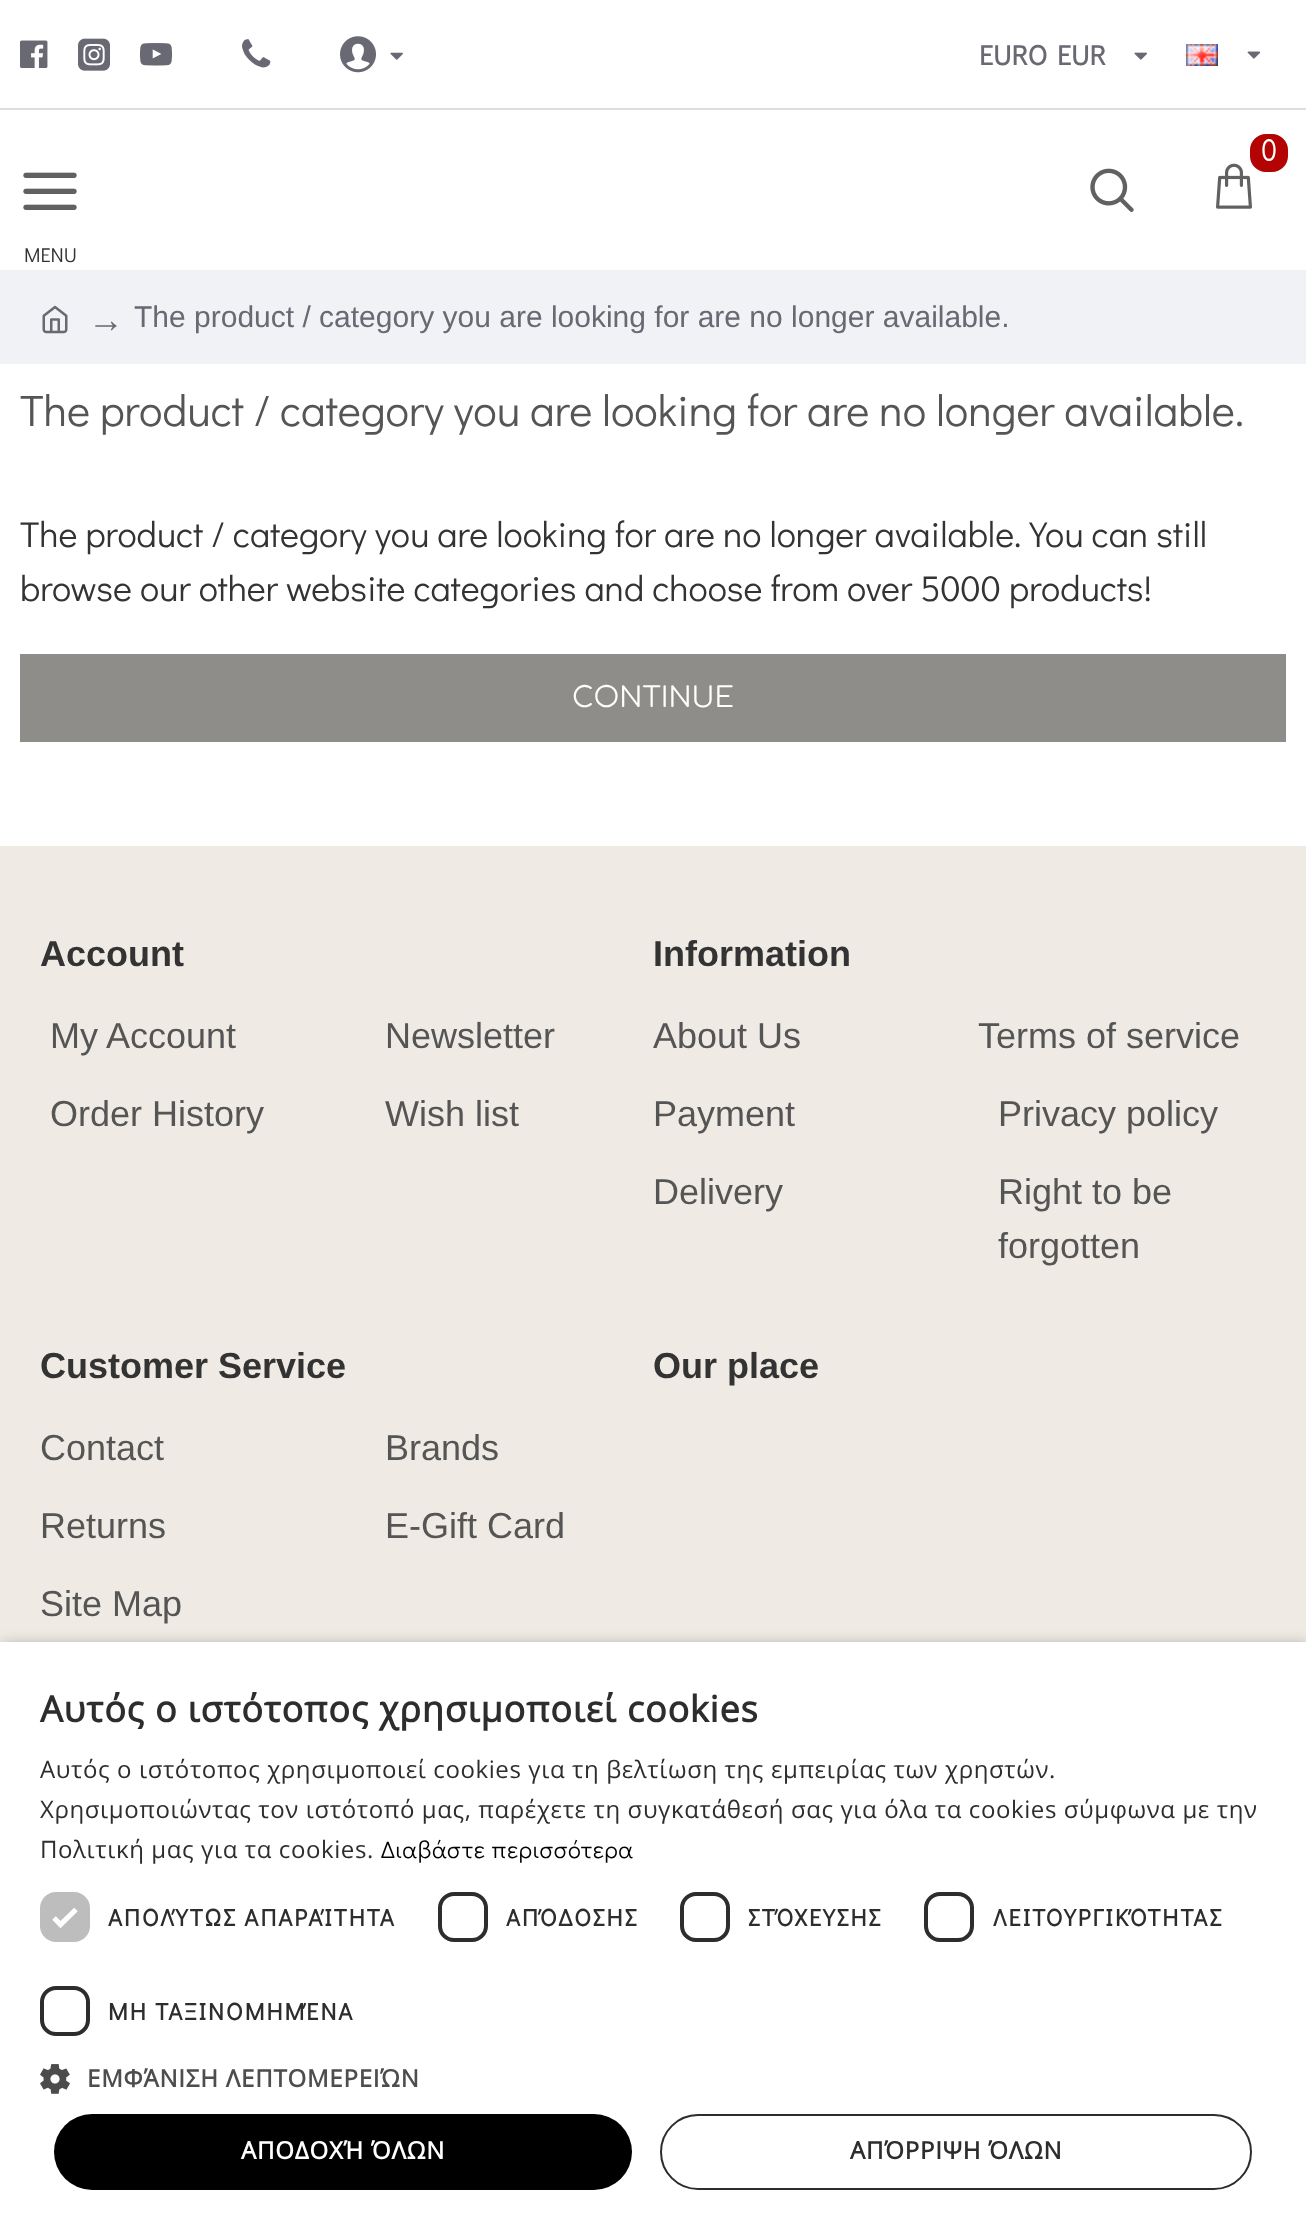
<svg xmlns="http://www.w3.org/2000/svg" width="1306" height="2229">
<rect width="100%" height="100%" fill="#fff"/>
<rect y="108" width="1306" height="2" fill="#ddd"/>
<image x="20" y="40" width="28" height="28" href="media/1.png"/>
<image x="78" y="38" width="32" height="33" href="media/2.png"/>
<image x="140" y="43" width="32" height="23" href="media/3.png"/>
<image x="242" y="39" width="29" height="29" href="media/4.png"/>
<image x="340" y="36" width="36" height="37" href="media/5.png"/>
<image x="390" y="52" width="13" height="8" href="media/6.png"/>
<text x="979" y="65" style="font-family:Didact Gothic;font-size:28px;font-weight:bold;fill:#696973">EURO</text>
<text x="1057" y="65" style="font-family:Didact Gothic;font-size:28px;font-weight:bold;fill:#696973">EUR</text>
<image x="1134" y="52" width="13" height="8" href="media/7.png"/>
<image x="1186" y="44" width="32" height="22" href="media/8.png"/>
<image x="1247" y="51" width="14" height="8" href="media/9.png"/>
<image x="1216" y="163" width="36" height="46" href="media/10.png"/>
<rect x="1248" y="132" width="42" height="42" rx="18" fill="#b30303" stroke="#fff" stroke-width="4"/>
<text x="1261" y="161" style="font-family:Comfortaa;font-size:28px;fill:#fff">0</text>
<image x="1090" y="168" width="44" height="44" href="media/11.png"/>
<image x="23" y="172" width="54" height="38" href="media/12.png"/>
<text x="24" y="262" style="font-family:Didact Gothic;font-size:20px;fill:#333">MENU</text>
<rect y="270" width="1306" height="94" fill="#f0f2f5"/>
<image x="42" y="305" width="26" height="29" href="media/13.png"/>
<text x="88" y="332" style="font-family:Liberation Serif;font-size:36px;fill:#696973">→</text>
<text x="134" y="327" style="font-family:Liberation Sans;font-size:30px;fill:#696973">The product / category you are looking for are no longer available.</text>
<text x="20" y="426" style="font-family:Didact Gothic;font-size:44px;fill:#555">The product / category you are looking for are no longer available.</text>
<text x="20" y="547" style="font-family:Didact Gothic;font-size:36px;fill:#333">The product / category you are looking for are no longer available. You can still</text>
<text x="20" y="601" style="font-family:Didact Gothic;font-size:36px;fill:#333">browse our other website categories and choose from over 5000 products!</text>
<rect x="20" y="654" width="1266" height="88" fill="#8e8d8a"/>
<text x="572" y="707" style="font-family:Comfortaa;font-size:28px;fill:#fff">CONTINUE</text>
<rect y="846" width="1306" height="796" fill="#efeae4"/>
<text x="40" y="966" style="font-family:Liberation Sans;font-size:36px;font-weight:bold;fill:#333">Account</text>
<text x="50" y="1048" style="font-family:Liberation Sans;font-size:36px;fill:#555">My Account</text>
<text x="385" y="1048" style="font-family:Liberation Sans;font-size:36px;fill:#555">Newsletter</text>
<text x="50" y="1126" style="font-family:Liberation Sans;font-size:36px;fill:#555">Order History</text>
<text x="385" y="1126" style="font-family:Liberation Sans;font-size:36px;fill:#555">Wish list</text>
<text x="653" y="966" style="font-family:Liberation Sans;font-size:36px;font-weight:bold;fill:#333">Information</text>
<text x="653" y="1048" style="font-family:Liberation Sans;font-size:36px;fill:#555">About Us</text>
<text x="978" y="1048" style="font-family:Liberation Sans;font-size:36px;fill:#555">Terms of service</text>
<text x="653" y="1126" style="font-family:Liberation Sans;font-size:36px;fill:#555">Payment</text>
<text x="998" y="1126" style="font-family:Liberation Sans;font-size:36px;fill:#555">Privacy policy</text>
<text x="653" y="1204" style="font-family:Liberation Sans;font-size:36px;fill:#555">Delivery</text>
<text x="998" y="1204" style="font-family:Liberation Sans;font-size:36px;fill:#555">Right to be</text>
<text x="998" y="1258" style="font-family:Liberation Sans;font-size:36px;fill:#555">forgotten</text>
<text x="40" y="1378" style="font-family:Liberation Sans;font-size:36px;font-weight:bold;fill:#333">Customer Service</text>
<text x="40" y="1460" style="font-family:Liberation Sans;font-size:36px;fill:#555">Contact</text>
<text x="385" y="1460" style="font-family:Liberation Sans;font-size:36px;fill:#555">Brands</text>
<text x="40" y="1538" style="font-family:Liberation Sans;font-size:36px;fill:#555">Returns</text>
<text x="385" y="1538" style="font-family:Liberation Sans;font-size:36px;fill:#555">E-Gift Card</text>
<text x="40" y="1616" style="font-family:Liberation Sans;font-size:36px;fill:#555">Site Map</text>
<text x="653" y="1378" style="font-family:Liberation Sans;font-size:36px;font-weight:bold;fill:#333">Our place</text>
<rect x="2" y="1646" width="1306" height="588" fill="#00000059" filter="blur(8px)"/>
<rect y="1642" width="1306" height="587" fill="#fff"/>
<text x="40" y="1722" style="font-family:Open Sans;font-size:36px;font-weight:bold;letter-spacing:0.8px;fill:#2d2d2d">Αυτός ο ιστότοπος χρησιμοποιεί cookies</text>
<text x="40" y="1778" style="font-family:Open Sans;font-size:24px;letter-spacing:0.6px;fill:#2d2d2d">Αυτός ο ιστότοπος χρησιμοποιεί cookies για τη βελτίωση της εμπειρίας των χρηστών.</text>
<text x="40" y="1818" style="font-family:Open Sans;font-size:24px;letter-spacing:0.6px;fill:#2d2d2d">Χρησιμοποιώντας τον ιστότοπό μας, παρέχετε τη συγκατάθεσή σας για όλα τα cookies σύμφωνα με την</text>
<text x="40" y="1858" style="font-family:Open Sans;font-size:24px;letter-spacing:0.6px;fill:#2d2d2d">Πολιτική μας για τα cookies.</text>
<text x="381" y="1858" style="font-family:Didact Gothic;font-size:24px;letter-spacing:0.6px;fill:#000">Διαβάστε περισσότερα</text>
<rect x="40" y="1892" width="50" height="50" rx="16" fill="#bdbdbd"/>
<path d="M54 1918l6.5 6.5l15.5-15" fill="none" stroke="#fff" stroke-width="5.2"/>
<text x="108" y="1926" style="font-family:Didact Gothic;font-size:24px;font-weight:bold;letter-spacing:2px;fill:#2d2d2d">ΑΠΟΛΎΤΩΣ ΑΠΑΡΑΊΤΗΤΑ</text>
<rect x="440" y="1894" width="46" height="46" rx="14" fill="none" stroke="#2d2d2d" stroke-width="4"/>
<text x="506" y="1926" style="font-family:Didact Gothic;font-size:24px;font-weight:bold;letter-spacing:2px;fill:#2d2d2d">ΑΠΌΔΟΣΗΣ</text>
<rect x="682" y="1894" width="46" height="46" rx="14" fill="none" stroke="#2d2d2d" stroke-width="4"/>
<text x="748" y="1926" style="font-family:Didact Gothic;font-size:24px;font-weight:bold;letter-spacing:2px;fill:#2d2d2d">ΣΤΌΧΕΥΣΗΣ</text>
<rect x="926" y="1894" width="46" height="46" rx="14" fill="none" stroke="#2d2d2d" stroke-width="4"/>
<text x="993" y="1926" style="font-family:Didact Gothic;font-size:24px;font-weight:bold;letter-spacing:2px;fill:#2d2d2d">ΛΕΙΤΟΥΡΓΙΚΌΤΗΤΑΣ</text>
<rect x="42" y="1988" width="46" height="46" rx="14" fill="none" stroke="#2d2d2d" stroke-width="4"/>
<text x="108" y="2020" style="font-family:Didact Gothic;font-size:24px;font-weight:bold;letter-spacing:2px;fill:#2d2d2d">ΜΗ ΤΑΞΙΝΟΜΗΜΈΝΑ</text>
<image x="40" y="2064" width="30" height="30" href="media/14.png"/>
<text x="87" y="2087" style="font-family:Open Sans;font-size:24px;font-weight:bold;letter-spacing:0.8px;fill:#4d4d4d">ΕΜΦΆΝΙΣΗ ΛΕΠΤΟΜΕΡΕΙΏΝ</text>
<rect x="54" y="2114" width="578" height="76" rx="38" fill="#000"/>
<text x="241" y="2159" style="font-family:Open Sans;font-size:24px;font-weight:bold;letter-spacing:0.8px;fill:#fff">ΑΠΟΔΟΧΉ ΌΛΩΝ</text>
<rect x="661" y="2115" width="590" height="74" rx="37" fill="none" stroke="#2d2d2d" stroke-width="2"/>
<text x="850" y="2159" style="font-family:Open Sans;font-size:24px;font-weight:bold;letter-spacing:0.8px;fill:#2d2d2d">ΑΠΌΡΡΙΨΗ ΌΛΩΝ</text>
</svg>
